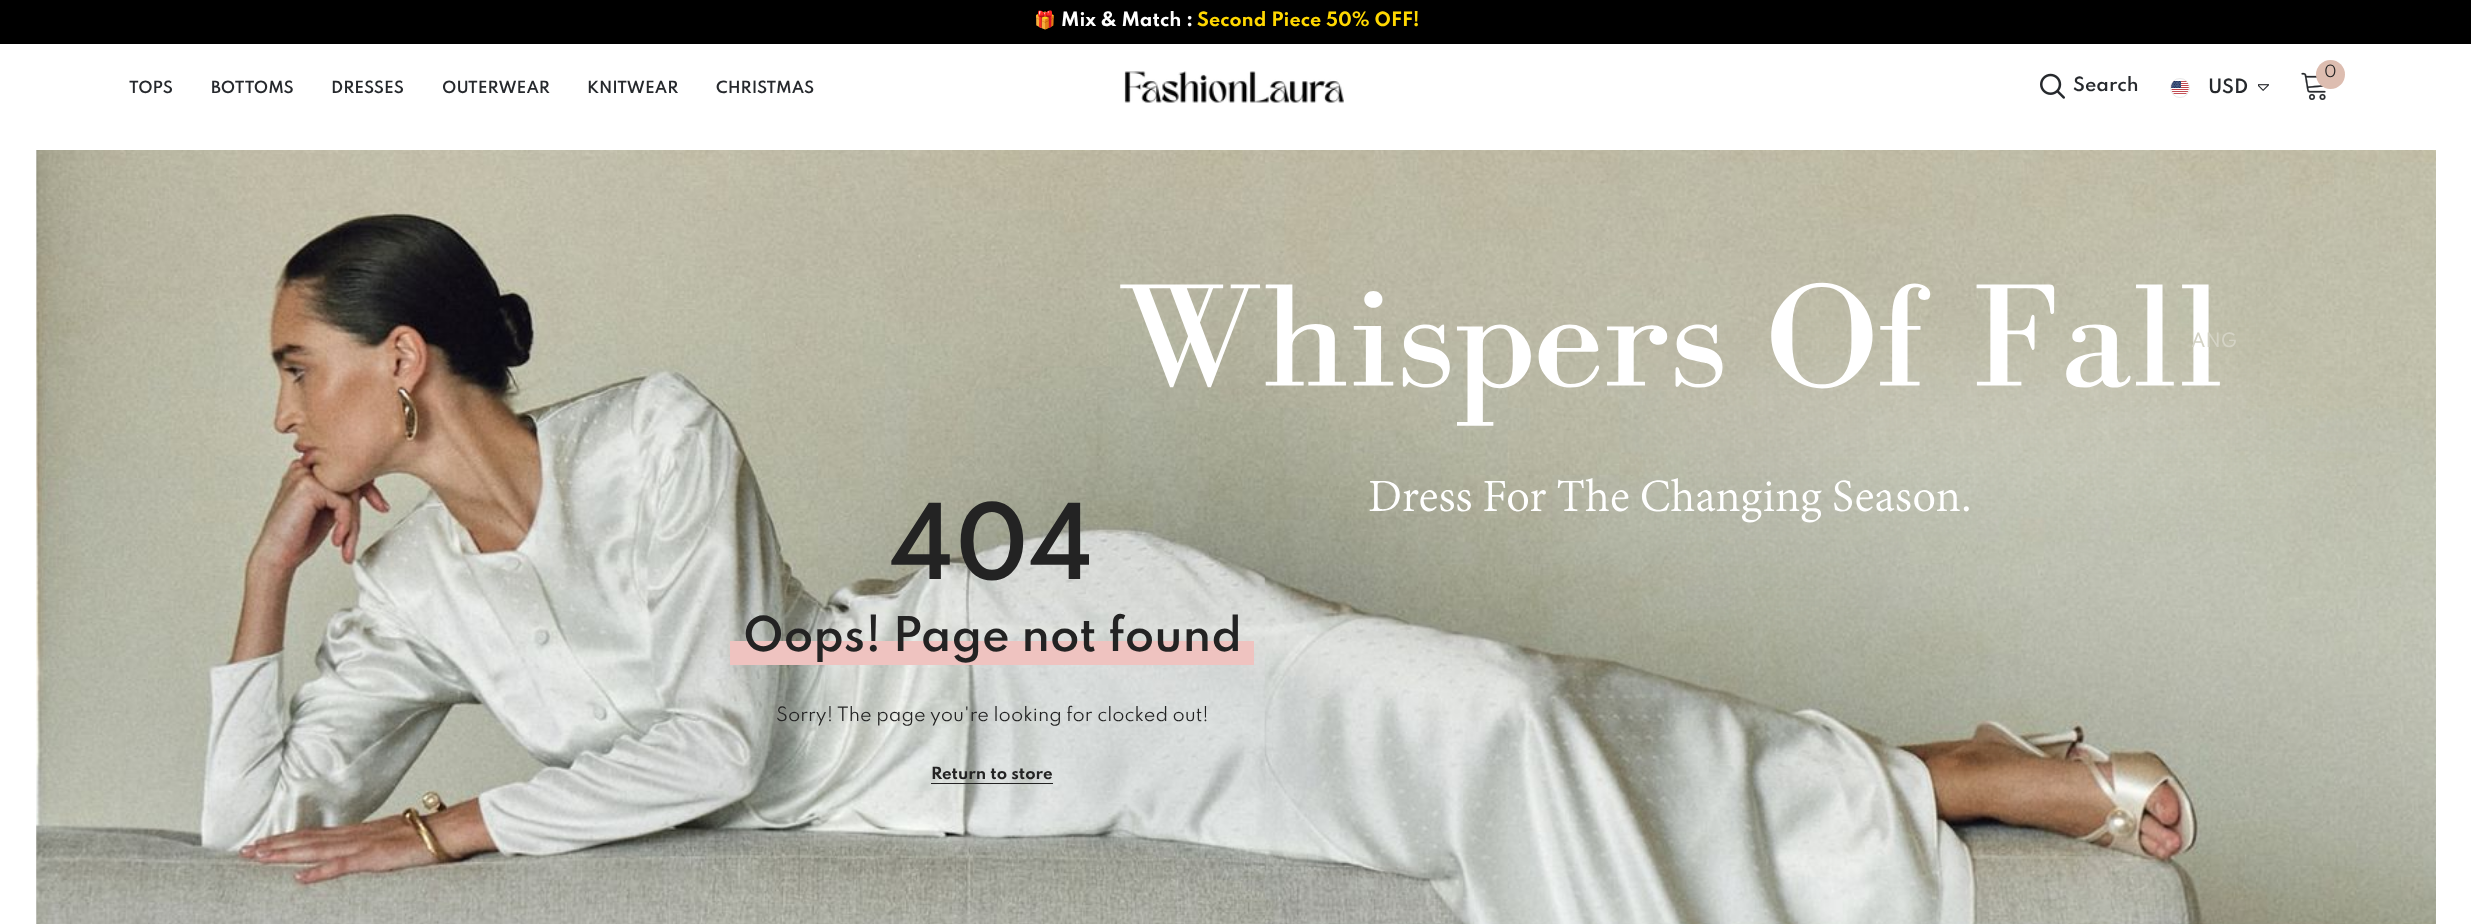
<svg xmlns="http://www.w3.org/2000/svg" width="2471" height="924">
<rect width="100%" height="100%" fill="#fff"/>
<rect width="2471" height="44" fill="#000"/>
<text x="1034" y="26" style="font-family:Noto Color Emoji;font-size:17.5px;font-weight:bold;fill:#fff">🎁</text>
<text x="1061" y="26" style="font-family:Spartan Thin;font-size:17.5px;font-weight:bold;fill:#fff">Mix &amp; Match :</text>
<text x="1197" y="26" style="font-family:Spartan Thin;font-size:17.5px;font-weight:bold;fill:#ffd700">Second Piece 50% OFF!</text>
<text x="129" y="93" style="font-family:Spartan Thin;font-size:15px;font-weight:600;fill:#26292d">TOPS</text>
<text x="211" y="93" style="font-family:Spartan Thin;font-size:15px;font-weight:600;fill:#26292d">BOTTOMS</text>
<text x="331" y="93" style="font-family:Spartan Thin;font-size:15px;font-weight:600;fill:#26292d">DRESSES</text>
<text x="442" y="93" style="font-family:Spartan Thin;font-size:15px;font-weight:600;fill:#26292d">OUTERWEAR</text>
<text x="587" y="93" style="font-family:Spartan Thin;font-size:15px;font-weight:600;fill:#26292d">KNITWEAR</text>
<text x="716" y="93" style="font-family:Spartan Thin;font-size:15px;font-weight:600;fill:#26292d">CHRISTMAS</text>
<image x="1124" y="71" width="220" height="32" href="media/1.png"/>
<image x="2301" y="72" width="25" height="28" href="media/2.png"/>
<circle cx="2330.5" cy="74.5" r="14.5" fill="#ddbdb0"/>
<text x="2324" y="77" style="font-family:Spartan Thin;font-size:15px;fill:#232323">0</text>
<image x="2040" y="73" width="25" height="26" href="media/3.png"/>
<text x="2073" y="91" style="font-family:Spartan Thin;font-size:17.5px;font-weight:600;fill:#26292d">Search</text>
<circle cx="2180" cy="88" r="9.5" fill="none" stroke="#e9e9e9"/>
<image x="2171" y="81" width="18" height="13" href="media/4.png"/>
<text x="2208" y="93" style="font-family:Spartan Thin;font-size:17.5px;font-weight:600;fill:#26292d">USD</text>
<image x="2258" y="84" width="11" height="7" href="media/5.png"/>
<image x="36" y="150" width="2400" height="774" href="media/6.png"/>
<text x="2191" y="347" style="font-family:Spartan Thin;font-size:17.5px;font-weight:500;fill:#d4d3c5">ANG</text>
<text x="890" y="579" style="font-family:Spartan Thin;font-size:92.5px;font-weight:600;fill:#232323">404</text>
<rect x="730" y="641" width="524" height="24" fill="#efc3c0"/>
<text x="743" y="651" style="font-family:Spartan Thin;font-size:42.5px;font-weight:600;fill:#232323">Oops! Page not found</text>
<text x="776" y="721" style="font-family:Spartan Thin;font-size:17.5px;fill:#232323">Sorry! The page you're looking for clocked out!</text>
<text x="931" y="779" style="font-family:Spartan Thin;font-size:15px;font-weight:bold;fill:#232323">Return to store</text>
<rect x="931" y="783" width="122" height="1" fill="#232323"/>
</svg>
